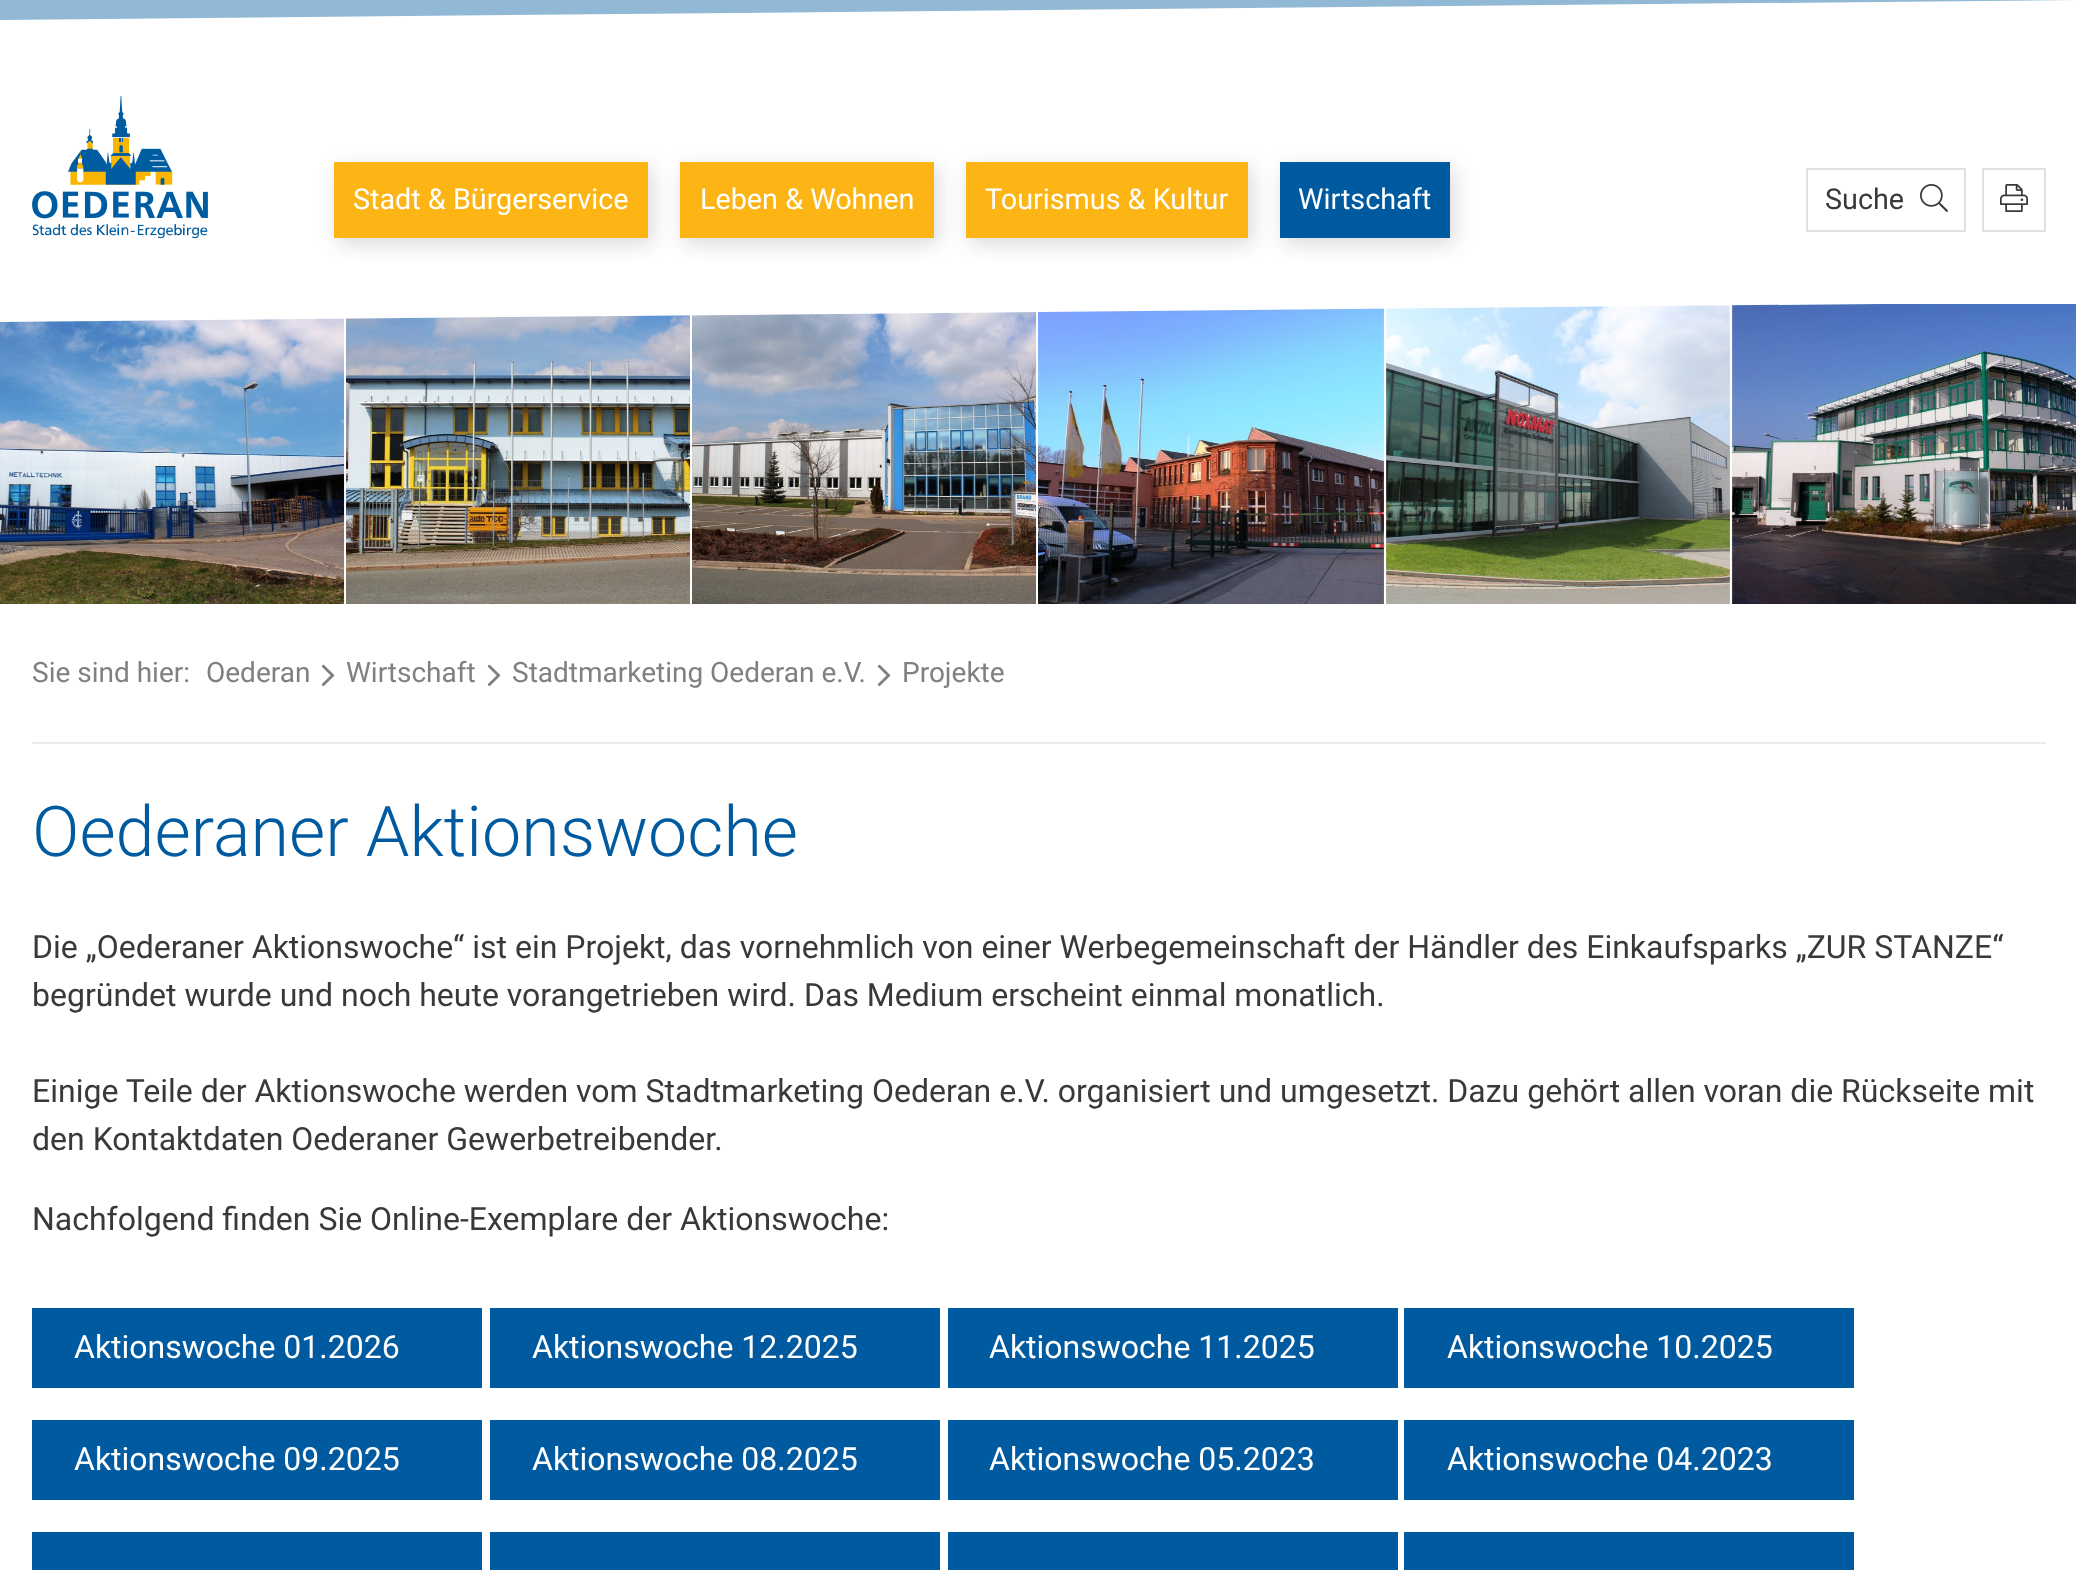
<svg xmlns="http://www.w3.org/2000/svg" width="2077" height="1570">
<rect width="100%" height="100%" fill="#fff"/>
<path d="M0 0h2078l-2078 20z" fill="#91b8d5"/>
<image x="32" y="96" width="176" height="142" href="media/1.png"/>
<rect x="338" y="168" width="314" height="76" fill="#00000026" filter="blur(10px)"/>
<rect x="334" y="162" width="314" height="76" fill="#fdb515"/>
<text x="353" y="209" style="font-family:Roboto;font-size:28.75px;fill:#fff">Stadt &amp; Bürgerservice</text>
<rect x="684" y="168" width="254" height="76" fill="#00000026" filter="blur(10px)"/>
<rect x="680" y="162" width="254" height="76" fill="#fdb515"/>
<text x="700" y="209" style="font-family:Roboto;font-size:28.75px;fill:#fff">Leben &amp; Wohnen</text>
<rect x="970" y="168" width="282" height="76" fill="#00000026" filter="blur(10px)"/>
<rect x="966" y="162" width="282" height="76" fill="#fdb515"/>
<text x="985" y="209" style="font-family:Roboto;font-size:28.75px;fill:#fff">Tourismus &amp; Kultur</text>
<rect x="1284" y="168" width="170" height="76" fill="#00000026" filter="blur(10px)"/>
<rect x="1280" y="162" width="170" height="76" fill="#005a9f"/>
<text x="1298" y="209" style="font-family:Roboto;font-size:28.75px;fill:#fff">Wirtschaft</text>
<rect x="1807" y="169" width="158" height="62" fill="none" stroke="#e0e0e0" stroke-width="2"/>
<text x="1825" y="209" style="font-family:Roboto;font-size:28.75px;fill:#393939">Suche</text>
<image x="1920" y="184" width="28" height="28" href="media/2.png"/>
<rect x="1983" y="169" width="62" height="62" fill="none" stroke="#e0e0e0" stroke-width="2"/>
<image x="2000" y="184" width="28" height="28" href="media/3.png"/>
<image x="0" y="318" width="345" height="286" href="media/4.png"/>
<image x="346" y="315" width="345" height="289" href="media/5.png"/>
<image x="692" y="312" width="345" height="292" href="media/6.png"/>
<image x="1038" y="308" width="346" height="296" href="media/7.png"/>
<image x="1386" y="305" width="344" height="299" href="media/8.png"/>
<image x="1731" y="304" width="345" height="300" href="media/9.png"/>
<path d="M0 302h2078l-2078 20z" fill="#fff"/>
<text x="32" y="682" style="font-family:Roboto;font-size:28px;fill:#808080">Sie sind hier:</text>
<text x="206" y="682" style="font-family:Roboto;font-size:28px;fill:#808080">Oederan</text>
<image x="321" y="664" width="14" height="23" href="media/10.png"/>
<text x="346" y="682" style="font-family:Roboto;font-size:28px;fill:#808080">Wirtschaft</text>
<image x="487" y="664" width="14" height="23" href="media/10.png"/>
<text x="512" y="682" style="font-family:Roboto;font-size:28px;fill:#808080">Stadtmarketing Oederan e.V.</text>
<image x="877" y="664" width="14" height="23" href="media/10.png"/>
<text x="902" y="682" style="font-family:Roboto;font-size:28px;fill:#808080">Projekte</text>
<rect x="32" y="742" width="2014" height="2" fill="#ebebeb"/>
<text x="32" y="856" style="font-family:Roboto;font-size:70px;font-weight:300;fill:#005a9f">Oederaner Aktionswoche</text>
<text x="32" y="958" style="font-family:Roboto;font-size:32px;fill:#393939">Die „Oederaner Aktionswoche“ ist ein Projekt, das vornehmlich von einer Werbegemeinschaft der Händler des Einkaufsparks „ZUR STANZE“</text>
<text x="32" y="1006" style="font-family:Roboto;font-size:32px;fill:#393939">begründet wurde und noch heute vorangetrieben wird. Das Medium erscheint einmal monatlich.</text>
<text x="32" y="1102" style="font-family:Roboto;font-size:32px;fill:#393939">Einige Teile der Aktionswoche werden vom Stadtmarketing Oederan e.V. organisiert und umgesetzt. Dazu gehört allen voran die Rückseite mit</text>
<text x="32" y="1150" style="font-family:Roboto;font-size:32px;fill:#393939">den Kontaktdaten Oederaner Gewerbetreibender.</text>
<text x="32" y="1230" style="font-family:Roboto;font-size:32px;fill:#393939">Nachfolgend finden Sie Online-Exemplare der Aktionswoche:</text>
<rect x="32" y="1308" width="450" height="80" fill="#005a9f"/>
<text x="74" y="1358" style="font-family:Roboto;font-size:32px;fill:#fff">Aktionswoche 01.2026</text>
<rect x="490" y="1308" width="450" height="80" fill="#005a9f"/>
<text x="532" y="1358" style="font-family:Roboto;font-size:32px;fill:#fff">Aktionswoche 12.2025</text>
<rect x="948" y="1308" width="450" height="80" fill="#005a9f"/>
<text x="989" y="1358" style="font-family:Roboto;font-size:32px;fill:#fff">Aktionswoche 11.2025</text>
<rect x="1404" y="1308" width="450" height="80" fill="#005a9f"/>
<text x="1447" y="1358" style="font-family:Roboto;font-size:32px;fill:#fff">Aktionswoche 10.2025</text>
<rect x="32" y="1420" width="450" height="80" fill="#005a9f"/>
<text x="74" y="1470" style="font-family:Roboto;font-size:32px;fill:#fff">Aktionswoche 09.2025</text>
<rect x="490" y="1420" width="450" height="80" fill="#005a9f"/>
<text x="532" y="1470" style="font-family:Roboto;font-size:32px;fill:#fff">Aktionswoche 08.2025</text>
<rect x="948" y="1420" width="450" height="80" fill="#005a9f"/>
<text x="989" y="1470" style="font-family:Roboto;font-size:32px;fill:#fff">Aktionswoche 05.2023</text>
<rect x="1404" y="1420" width="450" height="80" fill="#005a9f"/>
<text x="1447" y="1470" style="font-family:Roboto;font-size:32px;fill:#fff">Aktionswoche 04.2023</text>
<rect x="32" y="1532" width="450" height="38" fill="#005a9f"/>
<rect x="490" y="1532" width="450" height="38" fill="#005a9f"/>
<rect x="948" y="1532" width="450" height="38" fill="#005a9f"/>
<rect x="1404" y="1532" width="450" height="38" fill="#005a9f"/>
</svg>
